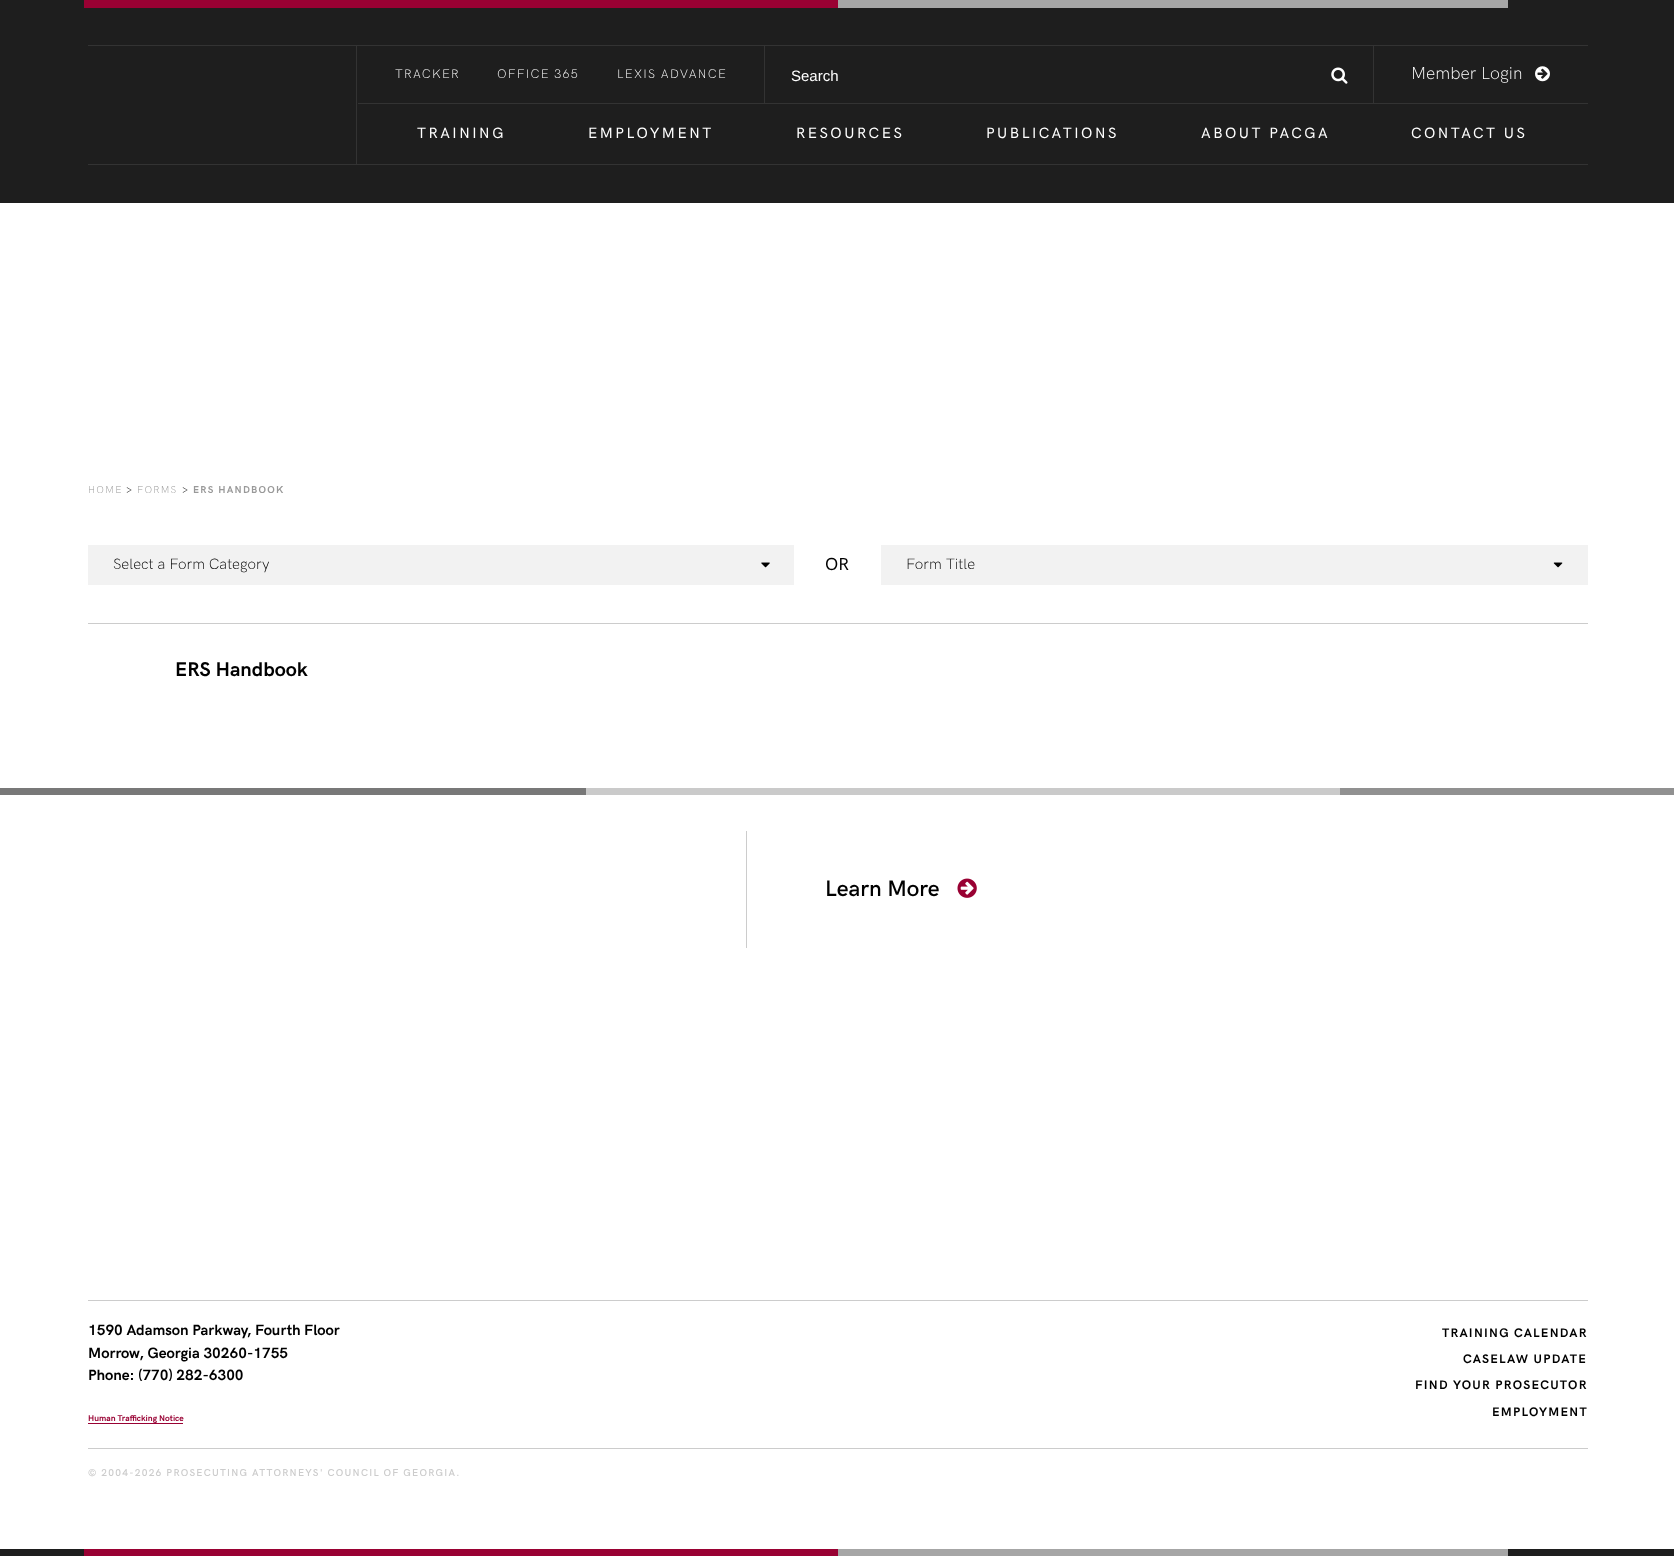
<svg xmlns="http://www.w3.org/2000/svg" width="1674" height="1556">
<rect width="100%" height="100%" fill="#fff"/>
<rect width="84" height="8" fill="#1e1e1e"/>
<rect x="84" width="754" height="8" fill="#990133"/>
<rect x="838" width="670" height="8" fill="#a6a6a6"/>
<rect x="1508" width="166" height="8" fill="#1e1e1e"/>
<rect y="8" width="1674" height="195" fill="#1e1e1e"/>
<rect x="88" y="45" width="1500" height="1" fill="#333"/>
<rect x="88" y="164" width="1500" height="1" fill="#333"/>
<rect x="356" y="46" width="1" height="118" fill="#333"/>
<rect x="358" y="103" width="1230" height="1" fill="#333"/>
<text x="395" y="78" style="font-family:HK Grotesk;font-size:12.5px;font-weight:300;letter-spacing:1.25px;fill:#fff">TRACKER</text>
<text x="497" y="78" style="font-family:HK Grotesk;font-size:12.5px;font-weight:300;letter-spacing:1.25px;fill:#fff">OFFICE 365</text>
<text x="617" y="78" style="font-family:HK Grotesk;font-size:12.5px;font-weight:300;letter-spacing:1.25px;fill:#fff">LEXIS ADVANCE</text>
<rect x="764" y="46" width="1" height="57" fill="#333"/>
<text x="791" y="81" style="font-family:Liberation Sans;font-size:15px;fill:#fff">Search</text>
<image x="1331" y="67" width="17" height="17" href="media/1.png"/>
<rect x="1373" y="46" width="1" height="57" fill="#333"/>
<text x="1411" y="79" style="font-family:HK Grotesk;font-size:17.5px;font-weight:300;fill:#fff">Member Login</text>
<image x="1535" y="66" width="15" height="16" href="media/2.png"/>
<text x="417" y="138" style="font-family:HK Grotesk;font-size:15px;font-weight:500;letter-spacing:2.5px;fill:#fff">TRAINING</text>
<text x="588" y="138" style="font-family:HK Grotesk;font-size:15px;font-weight:500;letter-spacing:2.5px;fill:#fff">EMPLOYMENT</text>
<text x="796" y="138" style="font-family:HK Grotesk;font-size:15px;font-weight:500;letter-spacing:2.5px;fill:#fff">RESOURCES</text>
<text x="986" y="138" style="font-family:HK Grotesk;font-size:15px;font-weight:500;letter-spacing:2.5px;fill:#fff">PUBLICATIONS</text>
<text x="1201" y="138" style="font-family:HK Grotesk;font-size:15px;font-weight:500;letter-spacing:2.5px;fill:#fff">ABOUT PACGA</text>
<text x="1411" y="138" style="font-family:HK Grotesk;font-size:15px;font-weight:500;letter-spacing:2.5px;fill:#fff">CONTACT US</text>
<text x="88" y="493" style="font-family:HK Grotesk;font-size:10px;font-weight:300;letter-spacing:1.25px;fill:#999">HOME</text>
<text x="126" y="493" style="font-family:HK Grotesk;font-size:10px;font-weight:300;letter-spacing:1.25px;fill:#000">&gt;</text>
<text x="137" y="493" style="font-family:HK Grotesk;font-size:10px;font-weight:300;letter-spacing:1.25px;fill:#999">FORMS</text>
<text x="182" y="493" style="font-family:HK Grotesk;font-size:10px;font-weight:300;letter-spacing:1.25px;fill:#000">&gt;</text>
<text x="193" y="493" style="font-family:HK Grotesk;font-size:10px;font-weight:bold;letter-spacing:1.25px;fill:#999">ERS HANDBOOK</text>
<rect x="88" y="623" width="1500" height="1" fill="#ccc"/>
<rect x="88" y="545" width="706" height="40" fill="#f2f2f2"/>
<text x="113" y="569" style="font-family:HK Grotesk;font-size:15px;font-weight:300;fill:#000">Select a Form Category</text>
<image x="761" y="562" width="9" height="6" href="media/3.png"/>
<text x="825" y="570" style="font-family:HK Grotesk;font-size:17.5px;font-weight:500;fill:#000">OR</text>
<rect x="881" y="545" width="707" height="40" fill="#f2f2f2"/>
<text x="906" y="569" style="font-family:HK Grotesk;font-size:15px;font-weight:300;fill:#000">Form Title</text>
<image x="1553" y="562" width="10" height="6" href="media/4.png"/>
<text x="175" y="676" style="font-family:HK Grotesk;font-size:20px;font-weight:bold;fill:#000">ERS Handbook</text>
<rect y="788" width="586" height="7" fill="#787878"/>
<rect x="586" y="788" width="754" height="7" fill="#cacaca"/>
<rect x="1340" y="788" width="334" height="7" fill="#919191"/>
<rect x="746" y="831" width="1" height="117" fill="#ccc"/>
<text x="825" y="896" style="font-family:HK Grotesk;font-size:22.5px;font-weight:600;fill:#000">Learn More</text>
<image x="957" y="878" width="20" height="20" href="media/5.png"/>
<rect x="88" y="1300" width="1500" height="1" fill="#ccc"/>
<rect x="88" y="1448" width="1500" height="1" fill="#ccc"/>
<text x="88" y="1335" style="font-family:HK Grotesk;font-size:15px;font-weight:bold;fill:#000">1590 Adamson Parkway, Fourth Floor</text>
<text x="88" y="1358" style="font-family:HK Grotesk;font-size:15px;font-weight:bold;fill:#000">Morrow, Georgia 30260-1755</text>
<text x="88" y="1380" style="font-family:HK Grotesk;font-size:15px;font-weight:bold;fill:#000">Phone: (770) 282-6300</text>
<text x="88" y="1421" style="font-family:HK Grotesk;font-size:8.5px;font-weight:bold;fill:#990133">Human Trafficking Notice</text>
<rect x="88" y="1423" width="95" height="1" fill="#990133"/>
<text x="1442" y="1337" style="font-family:HK Grotesk;font-size:12.5px;font-weight:bold;letter-spacing:1.25px;fill:#000">TRAINING CALENDAR</text>
<text x="1463" y="1363" style="font-family:HK Grotesk;font-size:12.5px;font-weight:bold;letter-spacing:1.25px;fill:#000">CASELAW UPDATE</text>
<text x="1415" y="1389" style="font-family:HK Grotesk;font-size:12.5px;font-weight:bold;letter-spacing:1.25px;fill:#000">FIND YOUR PROSECUTOR</text>
<text x="1492" y="1416" style="font-family:HK Grotesk;font-size:12.5px;font-weight:bold;letter-spacing:1.25px;fill:#000">EMPLOYMENT</text>
<text x="88" y="1476" style="font-family:HK Grotesk;font-size:10px;font-weight:600;letter-spacing:1.25px;fill:#ccc">© 2004-2026 PROSECUTING ATTORNEYS' COUNCIL OF GEORGIA.</text>
<rect y="1549" width="84" height="7" fill="#1e1e1e"/>
<rect x="84" y="1549" width="754" height="7" fill="#990133"/>
<rect x="838" y="1549" width="670" height="7" fill="#a6a6a6"/>
<rect x="1508" y="1549" width="166" height="7" fill="#1e1e1e"/>
</svg>
